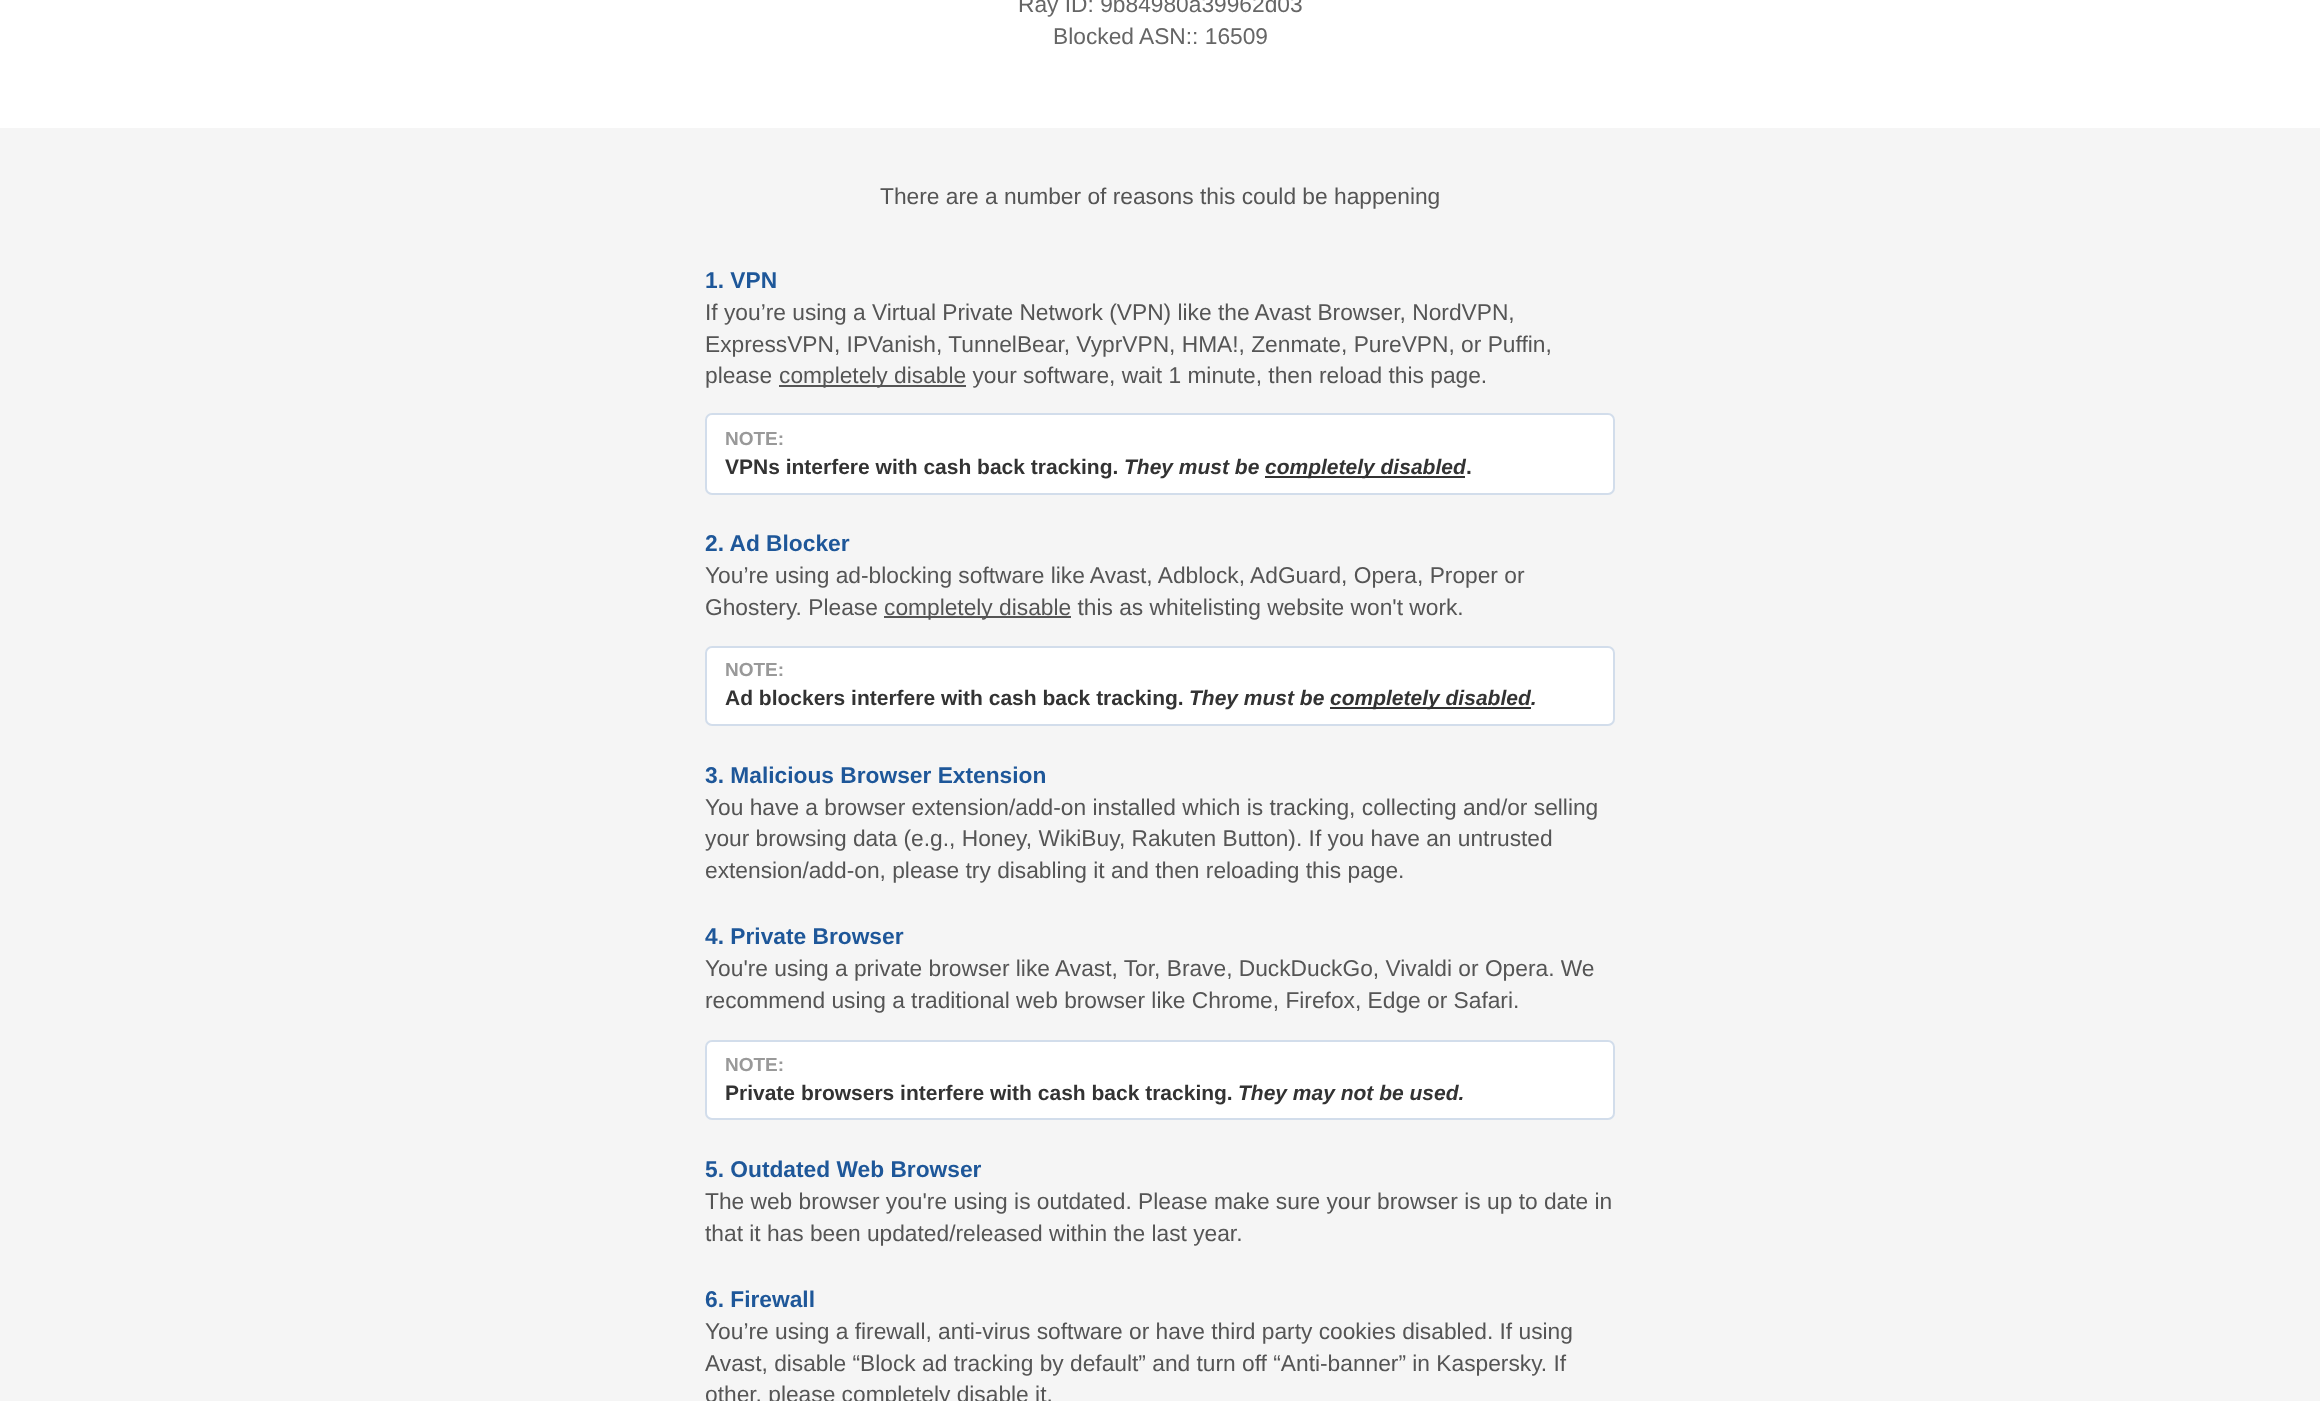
<svg xmlns="http://www.w3.org/2000/svg" width="2320" height="1401">
<rect width="100%" height="100%" fill="#f5f5f5"/>
<rect width="2320" height="128" fill="#fff"/>
<text x="1018" y="12" style="font-family:Liberation Sans;font-size:22.75px;fill:#666">Ray ID: 9b84980a39962d03</text>
<text x="1053" y="44" style="font-family:Liberation Sans;font-size:22.75px;fill:#666">Blocked ASN:: 16509</text>
<text x="880" y="204" style="font-family:Liberation Sans;font-size:22.75px;fill:#555">There are a number of reasons this could be happening</text>
<text x="705" y="288" style="font-family:Liberation Sans;font-size:22.75px;font-weight:bold;fill:#1e5799">1. VPN</text>
<text x="705" y="320" style="font-family:Liberation Sans;font-size:22.75px;fill:#555">If you’re using a Virtual Private Network (VPN) like the Avast Browser, NordVPN,</text>
<text x="705" y="352" style="font-family:Liberation Sans;font-size:22.75px;fill:#555">ExpressVPN, IPVanish, TunnelBear, VyprVPN, HMA!, Zenmate, PureVPN, or Puffin,</text>
<text x="705" y="383" style="font-family:Liberation Sans;font-size:22.75px;fill:#555">please</text>
<rect x="779" y="385" width="187" height="2" fill="#555"/>
<text x="779" y="383" style="font-family:Liberation Sans;font-size:22.75px;fill:#555">completely disable your software, wait 1 minute, then reload this page.</text>
<rect x="706" y="414" width="908" height="80" rx="6" fill="#fff" stroke="#d2ddeb" stroke-width="2"/>
<text x="725" y="445" style="font-family:Liberation Sans;font-size:19px;font-weight:bold;fill:#999">NOTE:</text>
<text x="725" y="474" style="font-family:Liberation Sans;font-size:21px;font-weight:bold;fill:#333">VPNs interfere with cash back tracking.</text>
<text x="1124" y="474" style="font-family:Liberation Sans;font-size:21px;font-weight:bold;font-style:italic;fill:#333">They must be</text>
<rect x="1265" y="476" width="200" height="2" fill="#333"/>
<text x="1265" y="474" style="font-family:Liberation Sans;font-size:21px;font-weight:bold;font-style:italic;fill:#333">completely disabled</text>
<text x="1466" y="474" style="font-family:Liberation Sans;font-size:21px;font-weight:bold;fill:#333">.</text>
<text x="705" y="551" style="font-family:Liberation Sans;font-size:22.75px;font-weight:bold;fill:#1e5799">2. Ad Blocker</text>
<text x="705" y="583" style="font-family:Liberation Sans;font-size:22.75px;fill:#555">You’re using ad-blocking software like Avast, Adblock, AdGuard, Opera, Proper or</text>
<text x="705" y="615" style="font-family:Liberation Sans;font-size:22.75px;fill:#555">Ghostery. Please</text>
<rect x="884" y="616" width="187" height="2" fill="#555"/>
<text x="884" y="615" style="font-family:Liberation Sans;font-size:22.75px;fill:#555">completely disable this as whitelisting website won't work.</text>
<rect x="706" y="647" width="908" height="78" rx="6" fill="#fff" stroke="#d2ddeb" stroke-width="2"/>
<text x="725" y="676" style="font-family:Liberation Sans;font-size:19px;font-weight:bold;fill:#999">NOTE:</text>
<text x="725" y="705" style="font-family:Liberation Sans;font-size:21px;font-weight:bold;fill:#333">Ad blockers interfere with cash back tracking.</text>
<text x="1189" y="705" style="font-family:Liberation Sans;font-size:21px;font-weight:bold;font-style:italic;fill:#333">They must be</text>
<rect x="1330" y="707" width="201" height="2" fill="#333"/>
<text x="1330" y="705" style="font-family:Liberation Sans;font-size:21px;font-weight:bold;font-style:italic;fill:#333">completely disabled.</text>
<text x="705" y="783" style="font-family:Liberation Sans;font-size:22.75px;font-weight:bold;fill:#1e5799">3. Malicious Browser Extension</text>
<text x="705" y="815" style="font-family:Liberation Sans;font-size:22.75px;fill:#555">You have a browser extension/add-on installed which is tracking, collecting and/or selling</text>
<text x="705" y="846" style="font-family:Liberation Sans;font-size:22.75px;fill:#555">your browsing data (e.g., Honey, WikiBuy, Rakuten Button). If you have an untrusted</text>
<text x="705" y="878" style="font-family:Liberation Sans;font-size:22.75px;fill:#555">extension/add-on, please try disabling it and then reloading this page.</text>
<text x="705" y="944" style="font-family:Liberation Sans;font-size:22.75px;font-weight:bold;fill:#1e5799">4. Private Browser</text>
<text x="705" y="976" style="font-family:Liberation Sans;font-size:22.75px;fill:#555">You're using a private browser like Avast, Tor, Brave, DuckDuckGo, Vivaldi or Opera. We</text>
<text x="705" y="1008" style="font-family:Liberation Sans;font-size:22.75px;fill:#555">recommend using a traditional web browser like Chrome, Firefox, Edge or Safari.</text>
<rect x="706" y="1041" width="908" height="78" rx="6" fill="#fff" stroke="#d2ddeb" stroke-width="2"/>
<text x="725" y="1071" style="font-family:Liberation Sans;font-size:19px;font-weight:bold;fill:#999">NOTE:</text>
<text x="725" y="1100" style="font-family:Liberation Sans;font-size:21px;font-weight:bold;fill:#333">Private browsers interfere with cash back tracking.</text>
<text x="1238" y="1100" style="font-family:Liberation Sans;font-size:21px;font-weight:bold;font-style:italic;fill:#333">They may not be used.</text>
<text x="705" y="1177" style="font-family:Liberation Sans;font-size:22.75px;font-weight:bold;fill:#1e5799">5. Outdated Web Browser</text>
<text x="705" y="1209" style="font-family:Liberation Sans;font-size:22.75px;fill:#555">The web browser you're using is outdated. Please make sure your browser is up to date in</text>
<text x="705" y="1241" style="font-family:Liberation Sans;font-size:22.75px;fill:#555">that it has been updated/released within the last year.</text>
<text x="705" y="1307" style="font-family:Liberation Sans;font-size:22.75px;font-weight:bold;fill:#1e5799">6. Firewall</text>
<text x="705" y="1339" style="font-family:Liberation Sans;font-size:22.75px;fill:#555">You’re using a firewall, anti-virus software or have third party cookies disabled. If using</text>
<text x="705" y="1371" style="font-family:Liberation Sans;font-size:22.75px;fill:#555">Avast, disable “Block ad tracking by default” and turn off “Anti-banner” in Kaspersky. If</text>
<text x="705" y="1402" style="font-family:Liberation Sans;font-size:22.75px;fill:#555">other, please completely disable it.</text>
</svg>
